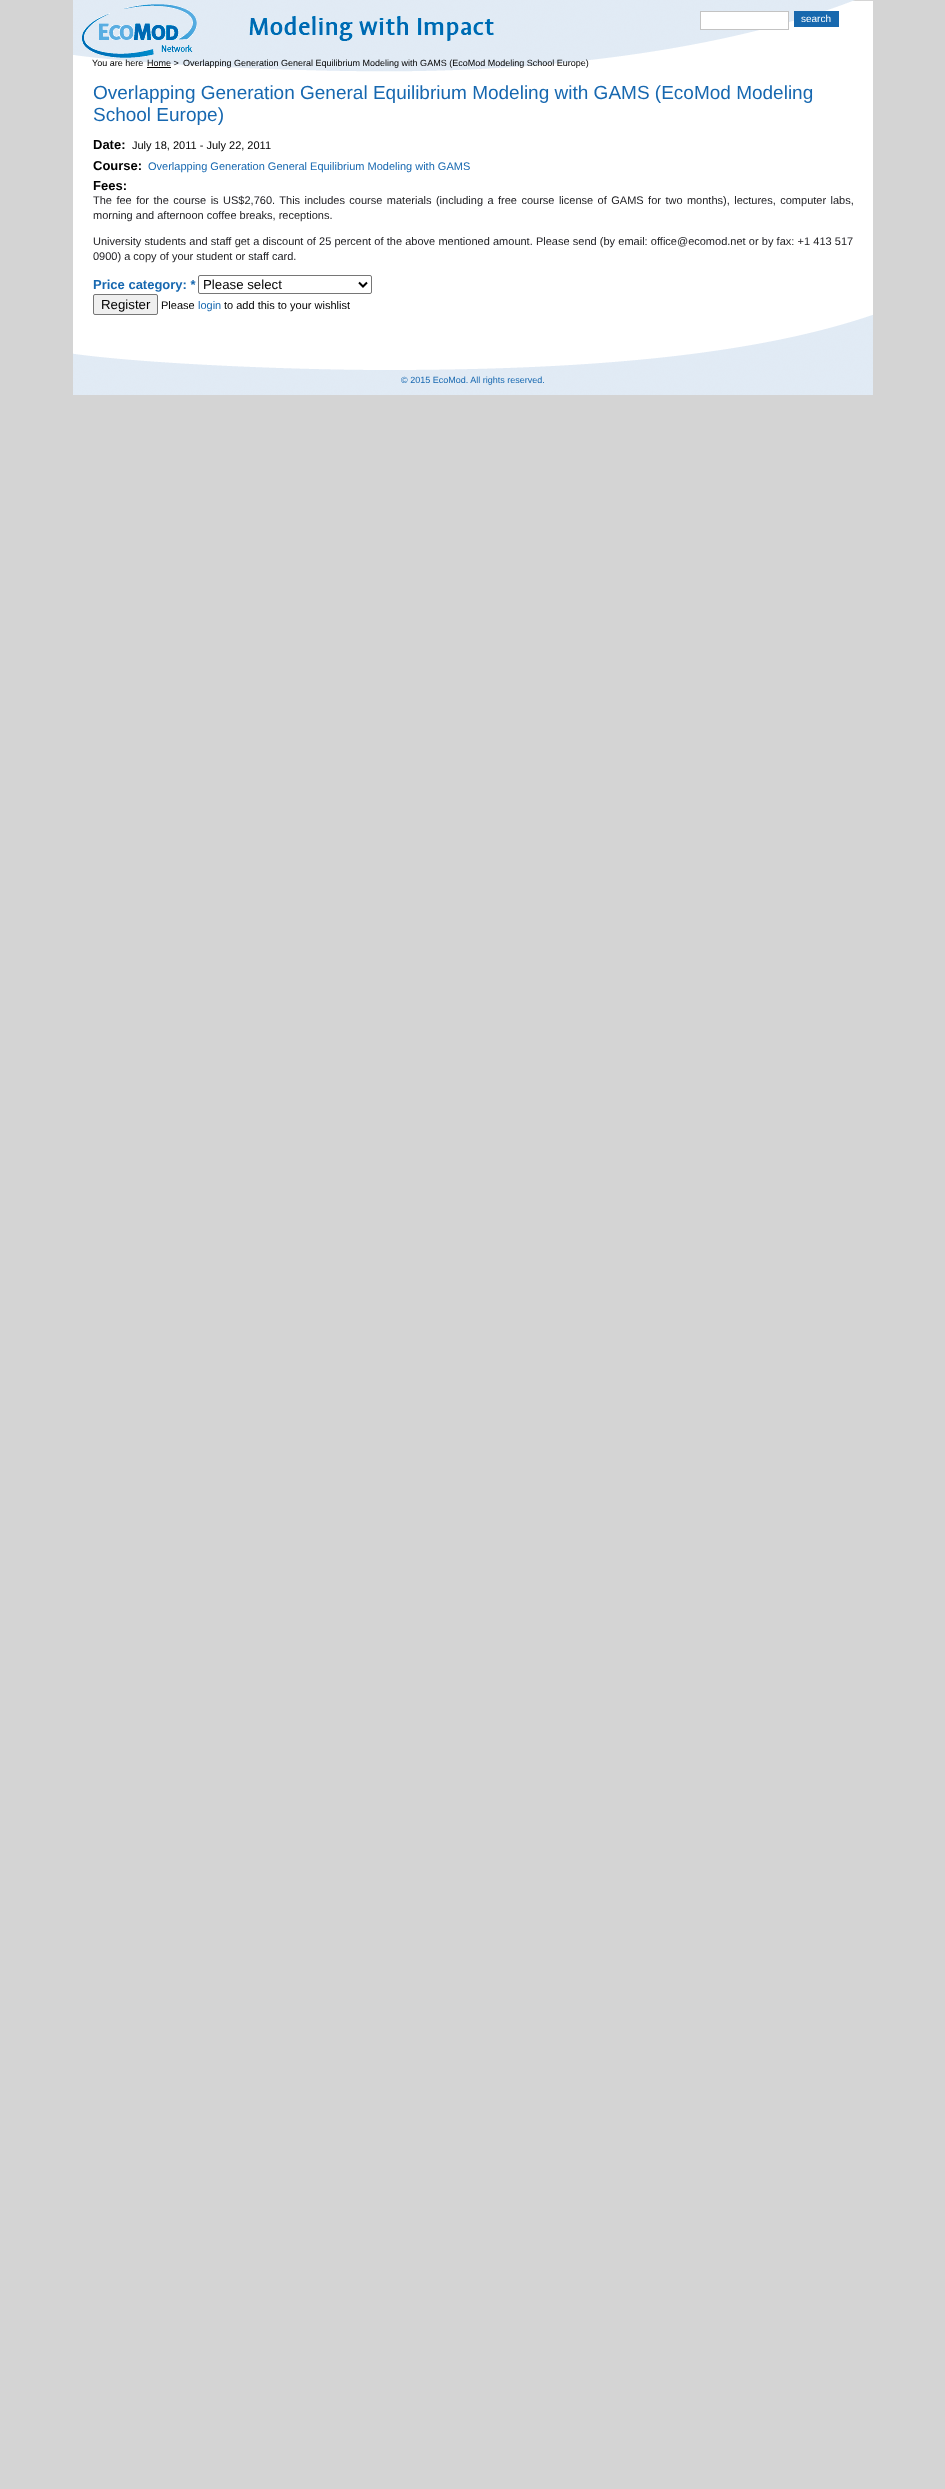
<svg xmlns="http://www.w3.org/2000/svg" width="945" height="2489">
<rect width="100%" height="100%" fill="#d4d4d4"/>
<rect x="73" y="72" width="800" height="243" fill="#fff"/>
<image x="73" y="0" width="800" height="72" href="media/1.png"/>
<image x="82" y="4" width="115" height="54" href="media/2.png"/>
<image x="249" y="16" width="245" height="25" href="media/3.png"/>
<rect x="700.5" y="11.5" width="88" height="18" fill="#fff" stroke="#c3c3c3"/>
<rect x="794" y="11" width="45" height="16" fill="#1768ae"/>
<text x="801" y="22" style="font-family:Liberation Sans;font-size:10px;fill:#fff">search</text>
<text x="92" y="66" style="font-family:Liberation Sans;font-size:9px;fill:#000">You are here</text>
<text x="147" y="66" style="font-family:Liberation Sans;font-size:9px;fill:#000">Home &gt;</text>
<rect x="147" y="67" width="24" height="1" fill="#020202"/>
<text x="183" y="66" style="font-family:Liberation Sans;font-size:9px;fill:#000">Overlapping Generation General Equilibrium Modeling with GAMS (EcoMod Modeling School Europe)</text>
<text x="93" y="99" style="font-family:Liberation Sans;font-size:19px;fill:#1768b0">Overlapping Generation General Equilibrium Modeling with GAMS (EcoMod Modeling</text>
<text x="93" y="121" style="font-family:Liberation Sans;font-size:19px;fill:#1768b0">School Europe)</text>
<text x="93" y="149" style="font-family:Liberation Sans;font-size:13px;font-weight:bold;fill:#000">Date:</text>
<text x="132" y="149" style="font-family:Liberation Sans;font-size:11px;fill:#000">July 18, 2011 - July 22, 2011</text>
<text x="93" y="170" style="font-family:Liberation Sans;font-size:13px;font-weight:bold;fill:#000">Course:</text>
<text x="148" y="170" style="font-family:Liberation Sans;font-size:11px;fill:#1768b0">Overlapping Generation General Equilibrium Modeling with GAMS</text>
<text x="93" y="190" style="font-family:Liberation Sans;font-size:13px;font-weight:bold;fill:#000">Fees:</text>
<text x="93" y="204" word-spacing="1.4" style="font-family:Liberation Sans;font-size:11px;fill:#212125">The fee for the course is US$2,760. This includes course materials (including a free course license of GAMS for two months), lectures, computer labs,</text>
<text x="93" y="219" style="font-family:Liberation Sans;font-size:11px;fill:#212125">morning and afternoon coffee breaks, receptions.</text>
<text x="93" y="245" word-spacing="0.15" style="font-family:Liberation Sans;font-size:11px;fill:#212125">University students and staff get a discount of 25 percent of the above mentioned amount. Please send (by email: office@ecomod.net or by fax: +1 413 517</text>
<text x="93" y="260" style="font-family:Liberation Sans;font-size:11px;fill:#212125">0900) a copy of your student or staff card.</text>
<text x="93" y="289" style="font-family:Liberation Sans;font-size:13px;font-weight:bold;fill:#1768b0">Price category: *</text>
<rect x="198.5" y="275.5" width="173" height="18" rx="1.5" fill="none" stroke="#767676"/>
<path d="M359 282.5l4 4l4-4" fill="none" stroke="#000" stroke-width="2"/>
<text x="203" y="289" style="font-family:Liberation Sans;font-size:13.25px;fill:#000">Please select</text>
<rect x="93.5" y="294.5" width="64" height="20" rx="1.5" fill="#efefef" stroke="#767676"/>
<text x="101" y="309" style="font-family:Liberation Sans;font-size:13.25px;fill:#000">Register</text>
<text x="161" y="309" style="font-family:Liberation Sans;font-size:11px;fill:#000">Please</text>
<text x="198" y="309" style="font-family:Liberation Sans;font-size:11px;fill:#1768b0">login</text>
<text x="224" y="309" style="font-family:Liberation Sans;font-size:11px;fill:#000">to add this to your wishlist</text>
<image x="73" y="315" width="800" height="80" href="media/4.png"/>
<text x="401" y="383" style="font-family:Liberation Sans;font-size:9px;fill:#1768b0">© 2015 EcoMod. All rights reserved.</text>
</svg>
